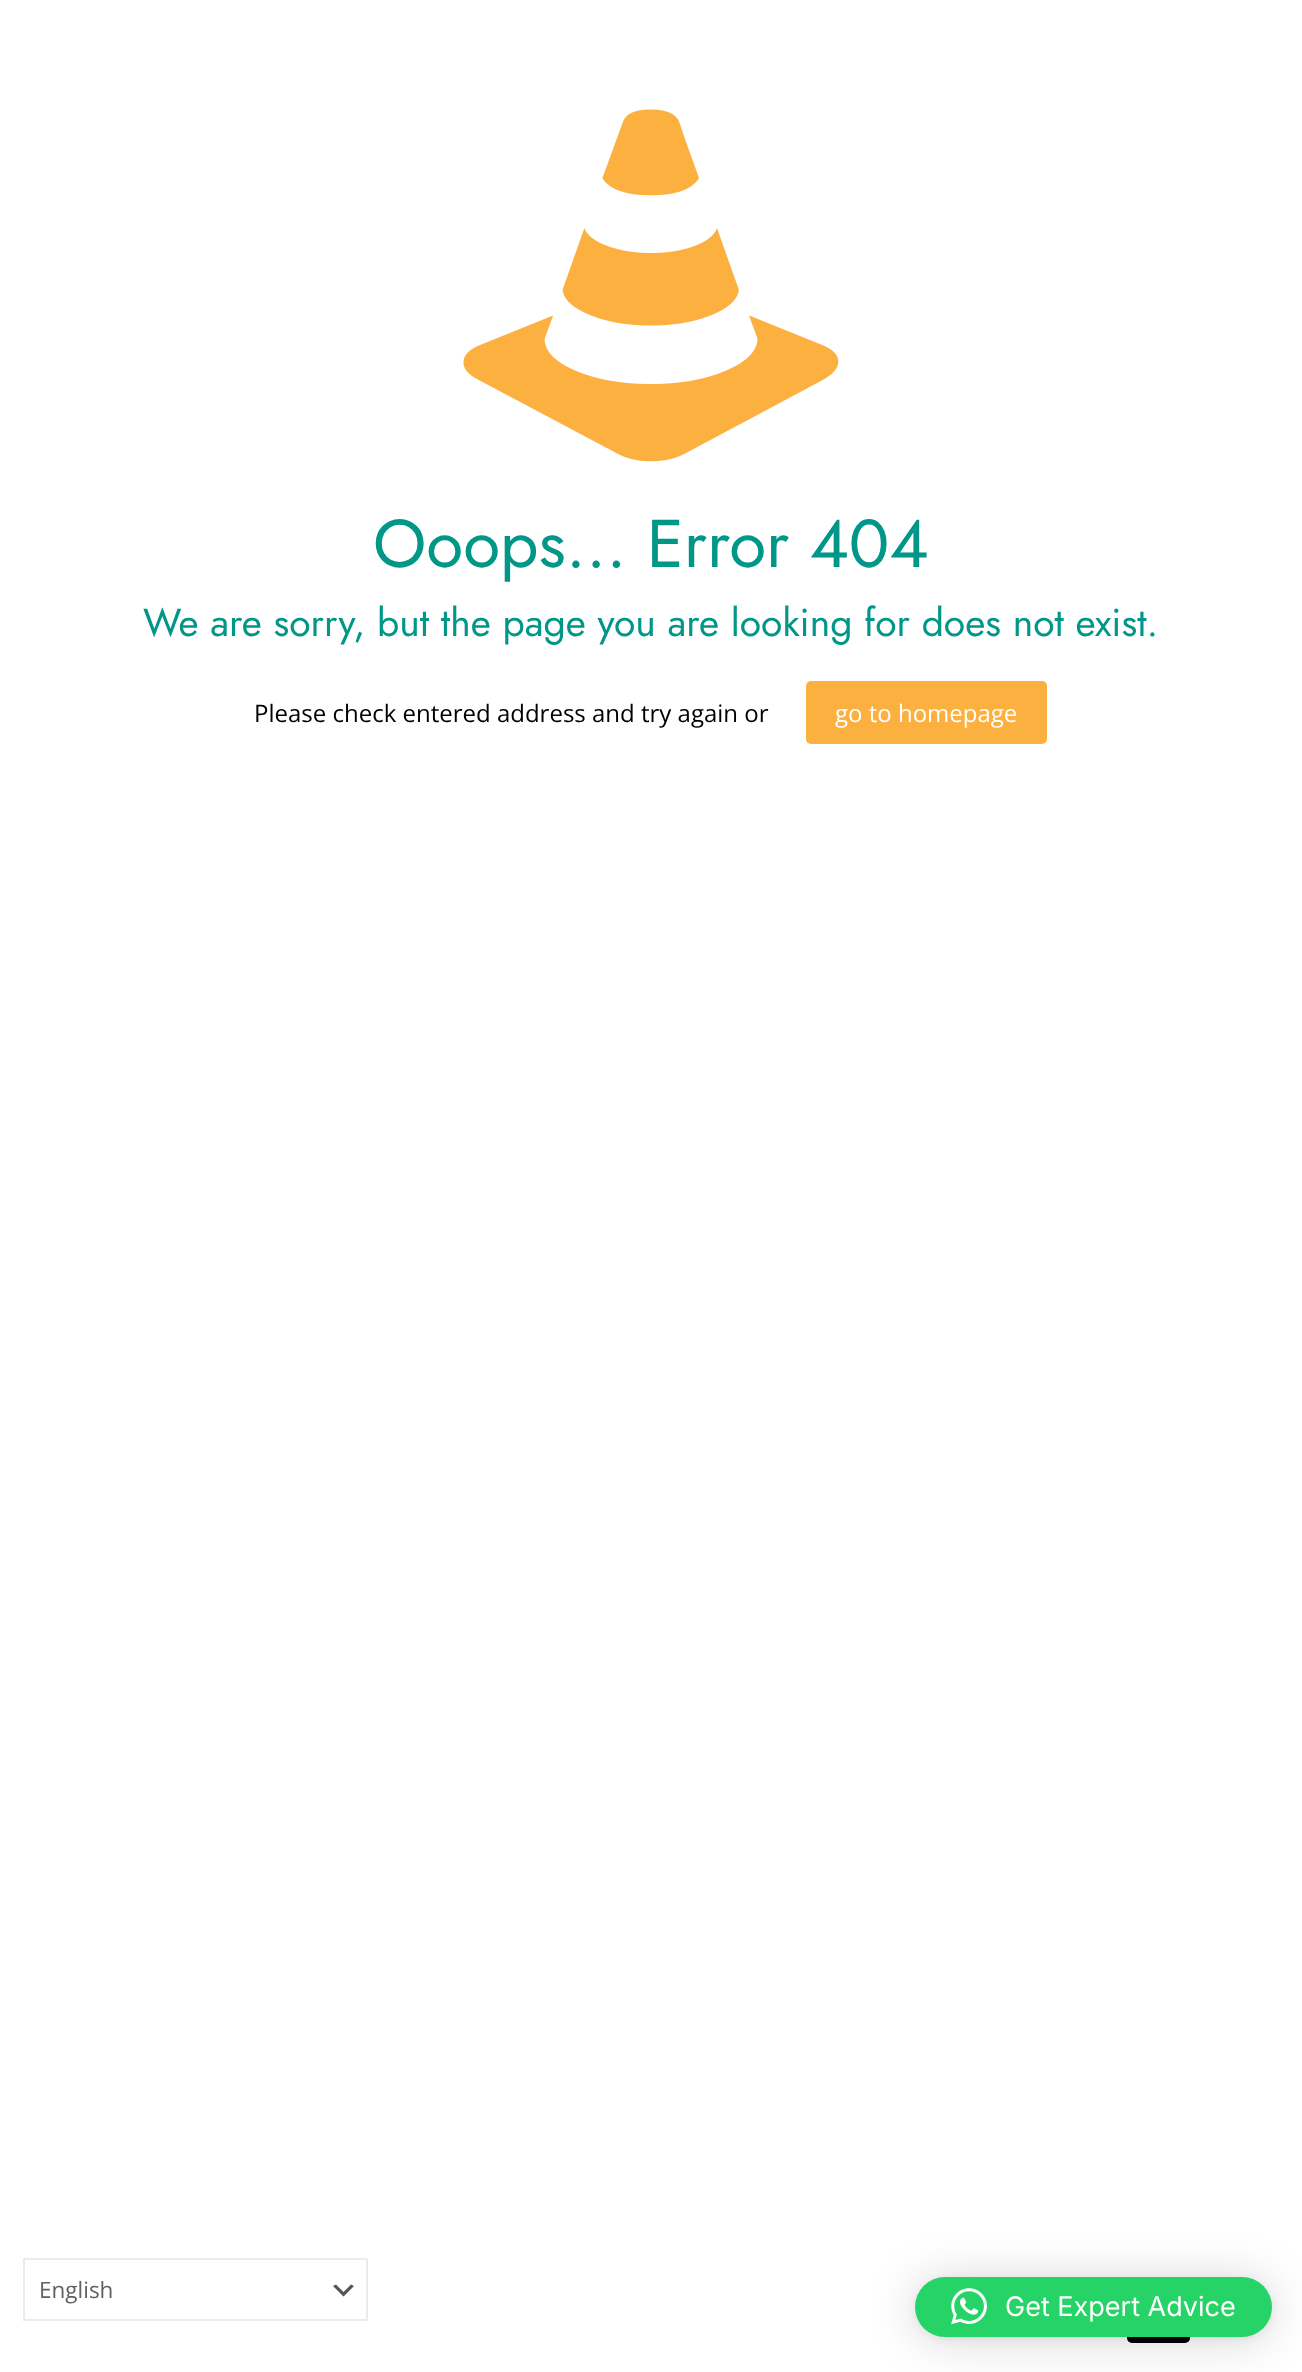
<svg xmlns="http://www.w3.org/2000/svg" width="1302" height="2372">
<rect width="100%" height="100%" fill="#fff"/>
<image x="463" y="109" width="376" height="353" href="media/1.png"/>
<text x="373" y="567" style="font-family:Jost;font-size:67.5px;fill:#009688">Ooops... Error 404</text>
<text x="143" y="636" style="font-family:Jost;font-size:39px;fill:#009688">We are sorry, but the page you are looking for does not exist.</text>
<text x="254" y="722" style="font-family:Open Sans;font-size:24px;fill:#000">Please check entered address and try again or</text>
<rect x="806" y="681" width="241" height="63" rx="5" fill="#fcb040"/>
<text x="835" y="722" style="font-family:Open Sans;font-size:24px;fill:#fff">go to homepage</text>
<path d="M336 2284.5l7.5 7.5l7.5-7.5l3 1.5l-10.5 10.5l-10.5-10.5z" fill="#555"/>
<rect x="24" y="2259" width="343" height="61" fill="none" stroke="#ebebeb" stroke-width="2"/>
<text x="39" y="2298" style="font-family:Open Sans;font-size:22.5px;fill:#626262">English</text>
<rect x="1127" y="2280" width="63" height="63" rx="5" fill="#000"/>
<rect x="915" y="2280" width="357" height="60" rx="30" fill="#00000029" filter="blur(24px)"/>
<rect x="915" y="2279" width="357" height="60" rx="30" fill="#0000000f" filter="blur(4.5px)"/>
<rect x="915" y="2277" width="357" height="60" rx="30" fill="#25d366"/>
<image x="951" y="2288" width="36" height="37" href="media/2.png"/>
<text x="1005" y="2316" style="font-family:Inter;font-size:27px;fill:#fff">Get Expert Advice</text>
</svg>
